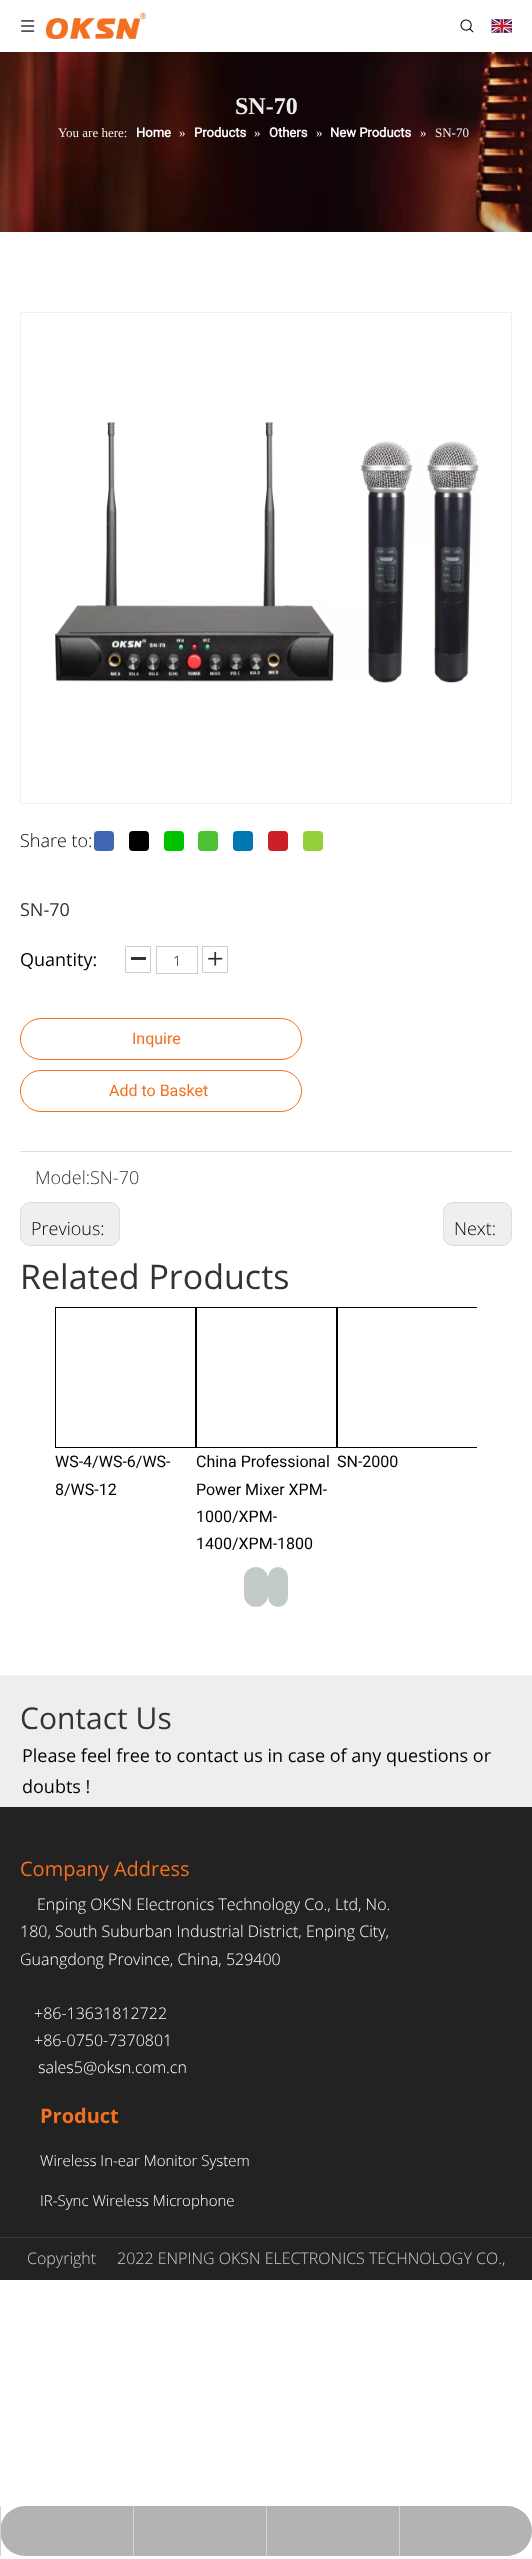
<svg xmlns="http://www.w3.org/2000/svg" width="532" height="2559">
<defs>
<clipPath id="clip1"><rect x="337" y="1307" width="140" height="169"/></clipPath>
</defs>
<rect width="100%" height="100%" fill="#fff"/>
<image x="0" y="52" width="532" height="180" href="media/1.png"/>
<image x="21" y="20" width="14" height="12" href="media/2.png"/>
<image x="46" y="13" width="100" height="26" href="media/3.png"/>
<image x="460" y="19" width="14" height="14" href="media/4.png"/>
<image x="491" y="19" width="21" height="14" href="media/5.png"/>
<text x="235" y="114" style="font-family:Liberation Serif;font-size:24px;font-weight:bold;fill:#eee">SN-70</text>
<text x="58" y="137" style="font-family:Liberation Serif;font-size:13px;fill:#eee">You are here:</text>
<text x="136" y="137" style="font-family:Roboto;font-size:13px;font-weight:bold;fill:#fff">Home</text>
<text x="179" y="137" style="font-family:Liberation Serif;font-size:13px;fill:#eee">»</text>
<text x="194" y="137" style="font-family:Roboto;font-size:13px;font-weight:bold;fill:#fff">Products</text>
<text x="254" y="137" style="font-family:Liberation Serif;font-size:13px;fill:#eee">»</text>
<text x="269" y="137" style="font-family:Roboto;font-size:13px;font-weight:bold;fill:#fff">Others</text>
<text x="316" y="137" style="font-family:Liberation Serif;font-size:13px;fill:#eee">»</text>
<text x="330" y="137" style="font-family:Roboto;font-size:13px;font-weight:bold;fill:#fff">New Products</text>
<text x="420" y="137" style="font-family:Liberation Serif;font-size:13px;fill:#eee">»</text>
<text x="435" y="137" style="font-family:Liberation Serif;font-size:13px;fill:#eee">SN-70</text>
<rect x="20.5" y="312.5" width="491" height="491" rx="1.5" fill="none" stroke="#efefef"/>
<image x="55" y="422" width="424" height="261" href="media/6.png"/>
<text x="20" y="847" style="font-family:Open Sans;font-size:18px;font-weight:300;fill:#000">Share to:</text>
<rect x="94" y="831" width="20" height="20" rx="4" fill="#4267b2"/>
<rect x="129" y="831" width="20" height="20" rx="4" fill="#000"/>
<rect x="164" y="831" width="20" height="20" rx="4" fill="#00c300"/>
<rect x="198" y="831" width="20" height="20" rx="4" fill="#4ec034"/>
<rect x="233" y="831" width="20" height="20" rx="4" fill="#0077b5"/>
<rect x="268" y="831" width="20" height="20" rx="4" fill="#cb2027"/>
<rect x="303" y="831" width="20" height="20" rx="4" fill="#95d03a"/>
<text x="20" y="916" style="font-family:Open Sans;font-size:18px;fill:#333">SN-70</text>
<text x="20" y="966" style="font-family:Open Sans;font-size:18px;fill:#000">Quantity:</text>
<rect x="131" y="957" width="15" height="3" fill="#333"/>
<rect x="125.5" y="946.5" width="25" height="26" rx="0.5" fill="none" stroke="#ccc"/>
<rect x="156.5" y="946.5" width="41" height="27" fill="none" stroke="#ccc"/>
<text x="173" y="966" style="font-family:Open Sans;font-size:14px;font-weight:300;fill:#000">1</text>
<image x="208" y="951" width="15" height="15" href="media/7.png"/>
<rect x="202.5" y="946.5" width="25" height="26" rx="0.5" fill="none" stroke="#ccc"/>
<rect x="20.5" y="1018.5" width="281" height="41" rx="20.5" fill="none" stroke="#f37021"/>
<text x="132" y="1044" style="font-family:Roboto;font-size:16px;fill:#f37021">Inquire</text>
<rect x="20.5" y="1070.5" width="281" height="41" rx="20.5" fill="none" stroke="#f37021"/>
<text x="109" y="1096" style="font-family:Roboto;font-size:16px;fill:#f37021">Add to Basket</text>
<rect x="20" y="1151" width="492" height="1" fill="#dfdfdf"/>
<text x="35" y="1184" style="font-family:Open Sans;font-size:18px;font-weight:300;fill:#333">Model:SN-70</text>
<rect x="20.5" y="1202.5" width="99" height="43" rx="9.5" fill="#efefef" stroke="#ddd"/>
<text x="31" y="1235" style="font-family:Open Sans;font-size:18px;font-weight:300;fill:#000">Previous:</text>
<rect x="443.5" y="1202.5" width="68" height="43" rx="9.5" fill="#efefef" stroke="#ddd"/>
<text x="454" y="1235" style="font-family:Open Sans;font-size:18px;font-weight:300;fill:#000">Next:</text>
<text x="20" y="1289" style="font-family:Open Sans;font-size:34px;fill:#333">Related Products</text>
<rect x="55.5" y="1307.5" width="140" height="140" fill="none" stroke="#000"/>
<text x="55" y="1467" style="font-family:Roboto;font-size:16px;fill:#000">WS-4/WS-6/WS-</text>
<text x="55" y="1495" style="font-family:Roboto;font-size:16px;fill:#000">8/WS-12</text>
<rect x="196.5" y="1307.5" width="140" height="140" fill="none" stroke="#000"/>
<text x="196" y="1467" style="font-family:Roboto;font-size:16px;fill:#000">China Professional</text>
<text x="196" y="1495" style="font-family:Roboto;font-size:16px;fill:#000">Power Mixer XPM-</text>
<text x="196" y="1522" style="font-family:Roboto;font-size:16px;fill:#000">1000/XPM-</text>
<text x="196" y="1549" style="font-family:Roboto;font-size:16px;fill:#000">1400/XPM-1800</text>
<g clip-path="url(#clip1)">
<rect x="337.5" y="1307.5" width="140" height="140" fill="none" stroke="#000"/>
</g>
<text x="337" y="1467" style="font-family:Roboto;font-size:16px;fill:#000">SN-2000</text>
<rect x="244" y="1567" width="24" height="40" rx="12" fill="#c3cbc8"/>
<rect x="268" y="1567" width="20" height="40" rx="10" fill="#c3cbc8"/>
<rect y="1675" width="532" height="132" fill="#eee"/>
<text x="20" y="1729" style="font-family:Open Sans;font-size:30px;fill:#333">Contact Us</text>
<text x="22" y="1762" style="font-family:Open Sans;font-size:18px;fill:#000">Please feel free to contact us in case of any questions or</text>
<text x="22" y="1793" style="font-family:Open Sans;font-size:18px;fill:#000">doubts !</text>
<rect y="1807" width="532" height="430" fill="#222"/>
<text x="20" y="1876" style="font-family:Open Sans;font-size:20px;fill:#f37021">Company Address</text>
<text x="37" y="1910" style="font-family:Open Sans;font-size:16px;font-weight:300;fill:#fff">Enping OKSN Electronics Technology Co., Ltd, No.</text>
<text x="20" y="1937" style="font-family:Open Sans;font-size:16px;font-weight:300;fill:#fff">180, South Suburban Industrial District, Enping City,</text>
<text x="20" y="1965" style="font-family:Open Sans;font-size:16px;font-weight:300;fill:#fff">Guangdong Province, China, 529400</text>
<text x="34" y="2019" style="font-family:Open Sans;font-size:16px;font-weight:300;fill:#fff">+86-13631812722</text>
<text x="34" y="2046" style="font-family:Open Sans;font-size:16px;font-weight:300;fill:#fff">+86-0750-7370801</text>
<text x="38" y="2073" style="font-family:Open Sans;font-size:16px;font-weight:300;fill:#fff">sales5@oksn.com.cn</text>
<text x="40" y="2123" style="font-family:Open Sans;font-size:20px;font-weight:bold;fill:#f37021">Product</text>
<text x="40" y="2166" style="font-family:Open Sans;font-size:15px;font-weight:300;fill:#fff">Wireless In-ear Monitor System</text>
<text x="40" y="2206" style="font-family:Open Sans;font-size:15px;font-weight:300;fill:#fff">IR-Sync Wireless Microphone</text>
<rect y="2506" width="532" height="50" rx="25" fill="#b3b3b3"/>
<rect y="2506" width="1" height="50" fill="#d3d3d3"/>
<rect x="133" y="2506" width="1" height="50" fill="#d3d3d3"/>
<rect x="266" y="2506" width="1" height="50" fill="#d3d3d3"/>
<rect x="399" y="2506" width="1" height="50" fill="#d3d3d3"/>
<rect y="2238" width="532" height="42" fill="#222"/>
<rect y="2237" width="532" height="1" fill="#3c3c3c"/>
<text x="27" y="2264" style="font-family:Open Sans;font-size:16px;font-weight:300;fill:#ccc">Copyright</text>
<text x="117" y="2264" style="font-family:Open Sans;font-size:16px;font-weight:300;fill:#ccc">2022 ENPING OKSN ELECTRONICS TECHNOLOGY CO.,</text>
</svg>
